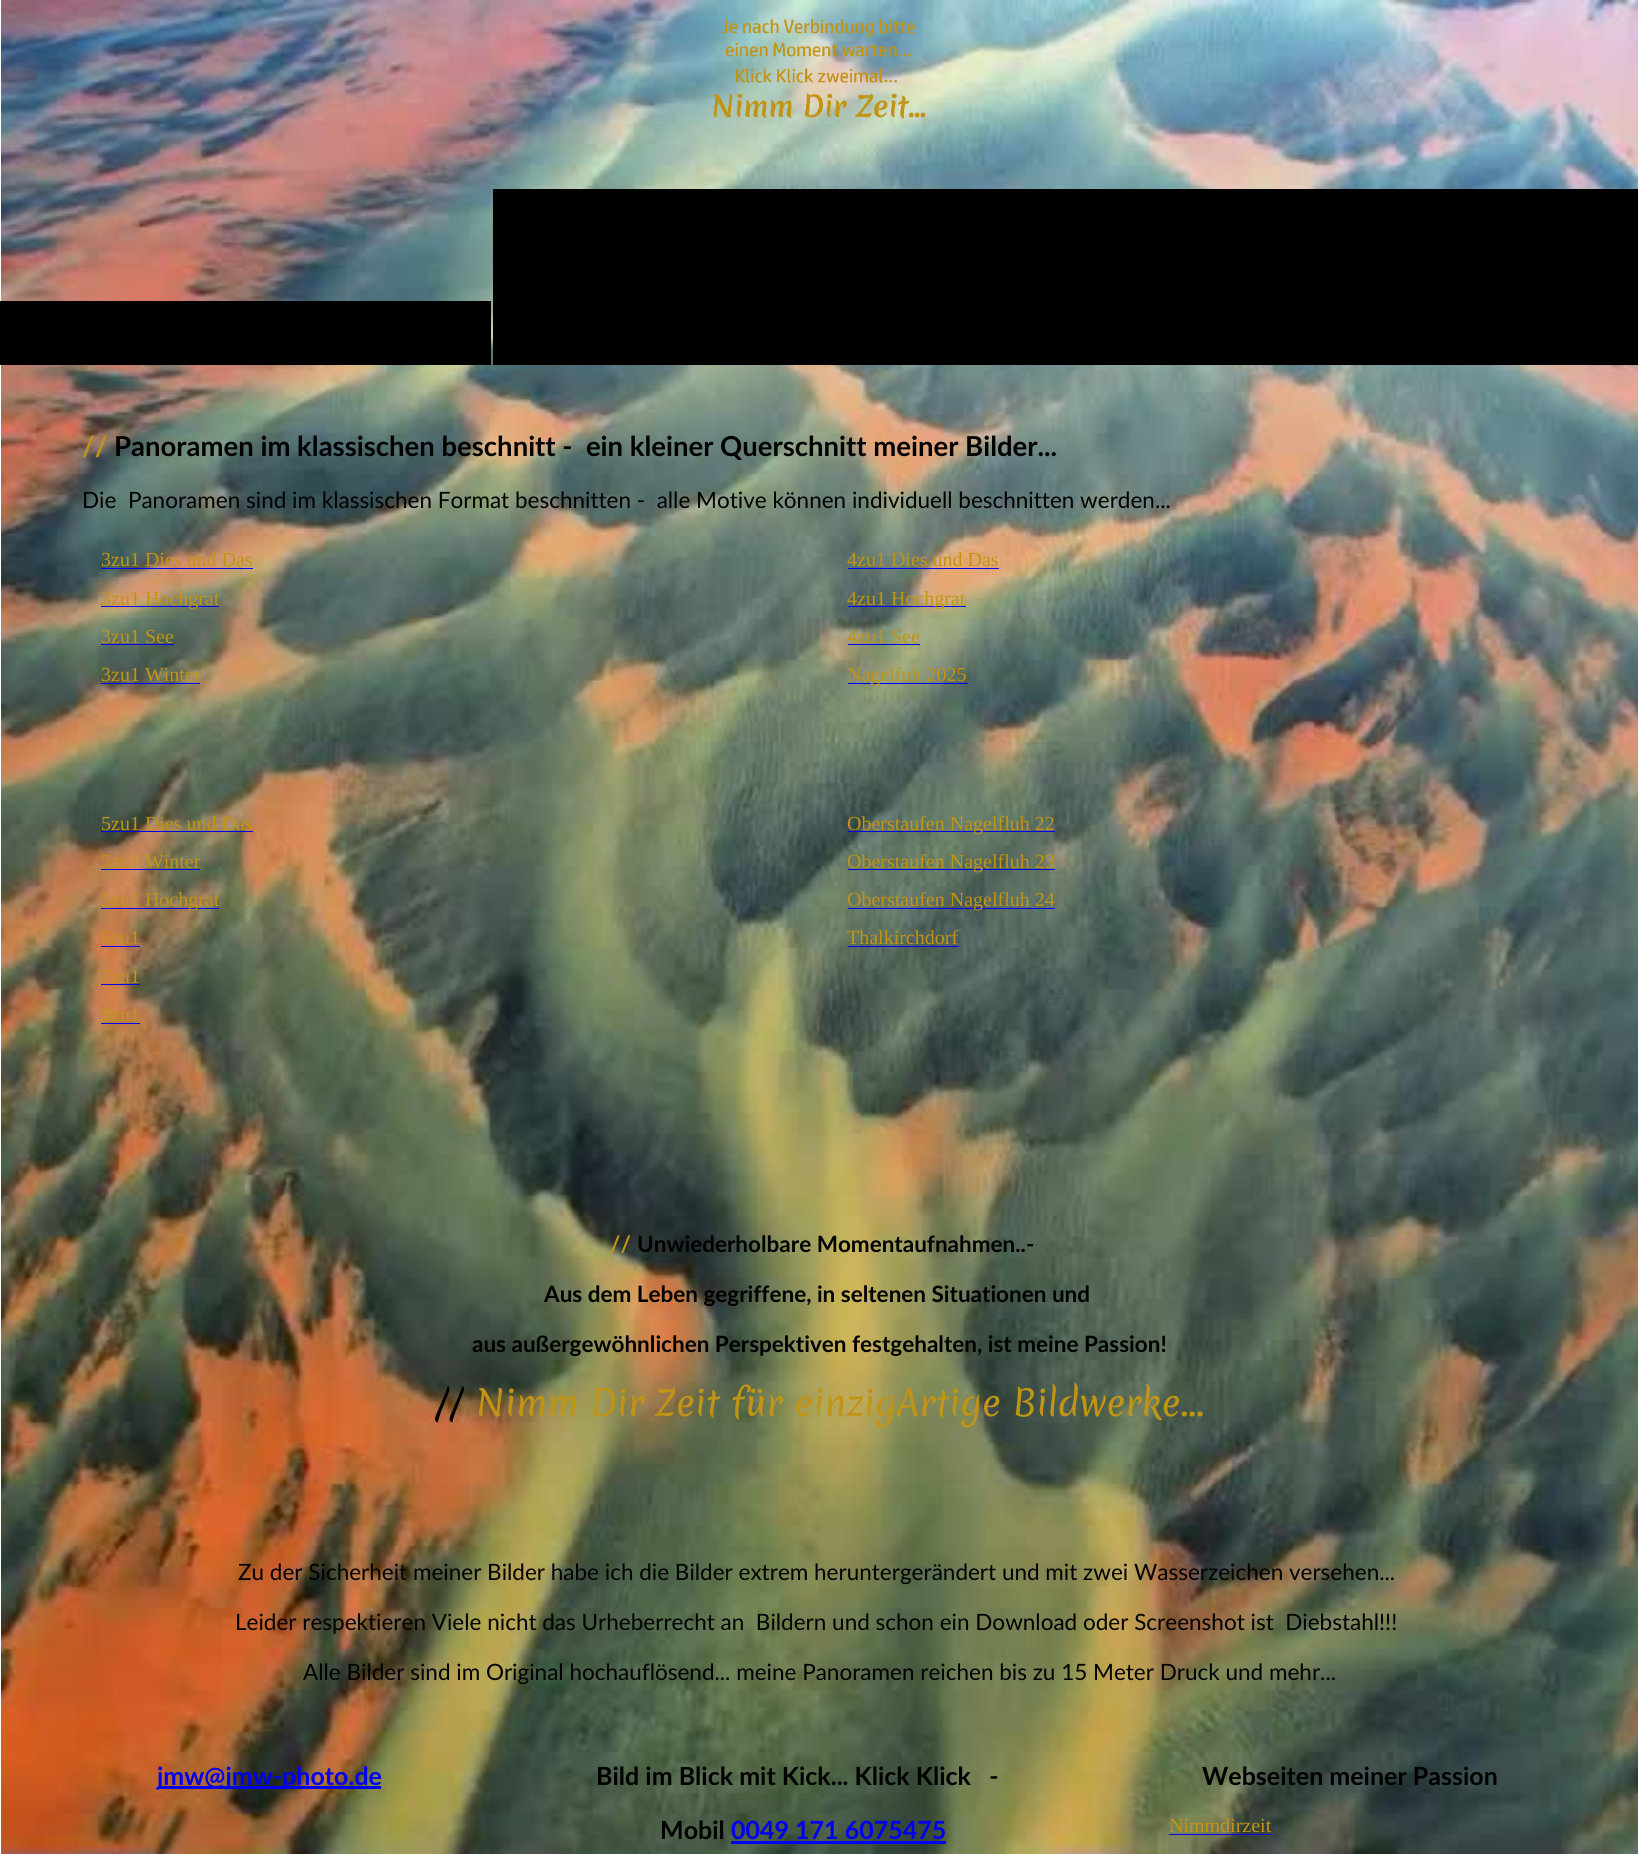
import math
import cairo

surface = cairo.ImageSurface(cairo.FORMAT_RGB24, 1638, 1854)
cr = cairo.Context(surface)
options = cairo.FontOptions()
options.set_hint_metrics(cairo.HINT_METRICS_OFF)
options.set_hint_style(cairo.HINT_STYLE_NONE)
cr.set_font_options(options)
cr.set_miter_limit(4)


def rgb(code):
    cr.set_source_rgb(*(v / 255 for v in bytes.fromhex(code[-6:])))


def image(path, x, y, w, h):
    cr.save()
    cr.set_source_surface(cairo.ImageSurface.create_from_png(path), x, y)
    cr.rectangle(x, y, w, h)
    cr.fill()
    cr.restore()


rgb("#ffffff")
cr.paint()
image("img/1.png", 1, 0, 1637, 1854)
image("img/2.png", 713, 18, 213, 101)
for x, y, w, h, color in [
    (0, 301, 491, 64, "#000000"),
    (493, 189, 1145, 176, "#000000"),
    (101, 568, 152, 1, "#0000ee"),
    (101, 606, 118, 1, "#0000ee"),
    (101, 644, 73, 1, "#0000ee"),
    (101, 683, 99, 1, "#0000ee"),
    (848, 568, 151, 1, "#0000ee"),
    (848, 606, 118, 1, "#0000ee"),
    (848, 644, 72, 1, "#0000ee"),
    (848, 683, 120, 1, "#0000ee"),
    (101, 831, 152, 1, "#0000ee"),
    (101, 869, 99, 1, "#0000ee"),
    (101, 908, 118, 1, "#0000ee"),
    (101, 946, 39, 1, "#0000ee"),
    (101, 984, 39, 1, "#0000ee"),
    (101, 1023, 39, 1, "#0000ee"),
    (848, 831, 207, 1, "#0000ee"),
    (848, 869, 207, 1, "#0000ee"),
    (848, 908, 207, 1, "#0000ee"),
    (848, 946, 111, 1, "#0000ee"),
    (158, 1786, 223, 3, "#0000ee"),
    (731, 1841, 215, 3, "#0000ee"),
    (1169, 1834, 102, 1, "#0000ee"),
]:
    rgb(color)
    cr.rectangle(x, y, w, h)
    cr.fill()
cr.select_font_face("Lato", cairo.FONT_SLANT_NORMAL, cairo.FONT_WEIGHT_BOLD)
cr.set_font_size(27.5)
rgb("#c29415")
cr.move_to(82, 456)
cr.show_text("//")
rgb("#000000")
cr.move_to(114, 456)
cr.show_text("Panoramen im klassischen beschnitt -  ein kleiner Querschnitt meiner Bilder...")
cr.select_font_face("Lato")
cr.set_font_size(22.5)
cr.move_to(82, 508)
cr.show_text("Die  Panoramen sind im klassischen Format beschnitten -  alle Motive können individuell beschnitten werden...")
cr.select_font_face("Liberation Serif")
cr.set_font_size(20)
rgb("#c29415")
for x, y, s in [
    (101, 566, "3zu1 Dies und Das"),
    (101, 605, "3zu1 Hochgrat"),
    (101, 643, "3zu1 See"),
    (101, 681, "3zu1 Winter"),
    (847, 566, "4zu1 Dies und Das"),
    (847, 605, "4zu1 Hochgrat"),
    (847, 643, "4zu1 See"),
    (847, 681, "Nagelfuh 2025"),
    (101, 830, "5zu1 Dies und Das"),
    (101, 868, "5zu1 Winter"),
    (101, 906, "5zu1 Hochgrat"),
    (101, 944, "6zu1"),
    (101, 983, "7zu1"),
    (101, 1021, "9zu1"),
    (847, 830, "Oberstaufen Nagelfluh 22"),
    (847, 868, "Oberstaufen Nagelfluh 23"),
    (847, 906, "Oberstaufen Nagelfluh 24"),
    (847, 944, "Thalkirchdorf"),
]:
    cr.move_to(x, y)
    cr.show_text(s)
cr.select_font_face("Lato", cairo.FONT_SLANT_NORMAL, cairo.FONT_WEIGHT_BOLD)
cr.set_font_size(22.5)
cr.move_to(610, 1252)
cr.show_text("//")
rgb("#000000")
for x, y, s in [
    (637, 1252, "Unwiederholbare Momentaufnahmen..-"),
    (544, 1302, "Aus dem Leben gegriffene, in seltenen Situationen und"),
    (472, 1352, "aus außergewöhnlichen Perspektiven festgehalten, ist meine Passion!"),
]:
    cr.move_to(x, y)
    cr.show_text(s)
cr.select_font_face("Merienda")
cr.set_font_size(35)
cr.move_to(435, 1416)
cr.show_text("//")
rgb("#c29415")
cr.move_to(476, 1416)
cr.show_text("Nimm Dir Zeit für einzigArtige Bildwerke...")
cr.select_font_face("Lato")
cr.set_font_size(22.5)
rgb("#000000")
for x, y, s in [
    (238, 1580, "Zu der Sicherheit meiner Bilder habe ich die Bilder extrem heruntergerändert und mit zwei Wasserzeichen versehen..."),
    (235, 1630, "Leider respektieren Viele nicht das Urheberrecht an  Bildern und schon ein Download oder Screenshot ist  Diebstahl!!!"),
    (303, 1680, "Alle Bilder sind im Original hochauflösend... meine Panoramen reichen bis zu 15 Meter Druck und mehr..."),
]:
    cr.move_to(x, y)
    cr.show_text(s)
cr.select_font_face("Lato", cairo.FONT_SLANT_NORMAL, cairo.FONT_WEIGHT_BOLD)
cr.set_font_size(25)
rgb("#0000ee")
cr.move_to(157, 1785)
cr.show_text("jmw@jmw-photo.de")
rgb("#000000")
cr.move_to(596, 1785)
cr.show_text("Bild im Blick mit Kick... Klick Klick   -")
cr.move_to(660, 1839)
cr.show_text("Mobil")
rgb("#0000ee")
cr.move_to(731, 1839)
cr.show_text("0049 171 6075475")
rgb("#000000")
cr.move_to(1202, 1785)
cr.show_text("Webseiten meiner Passion")
cr.select_font_face("Liberation Serif")
cr.set_font_size(20)
rgb("#c29415")
cr.move_to(1169, 1832)
cr.show_text("Nimmdirzeit")
surface.write_to_png("page.png")
